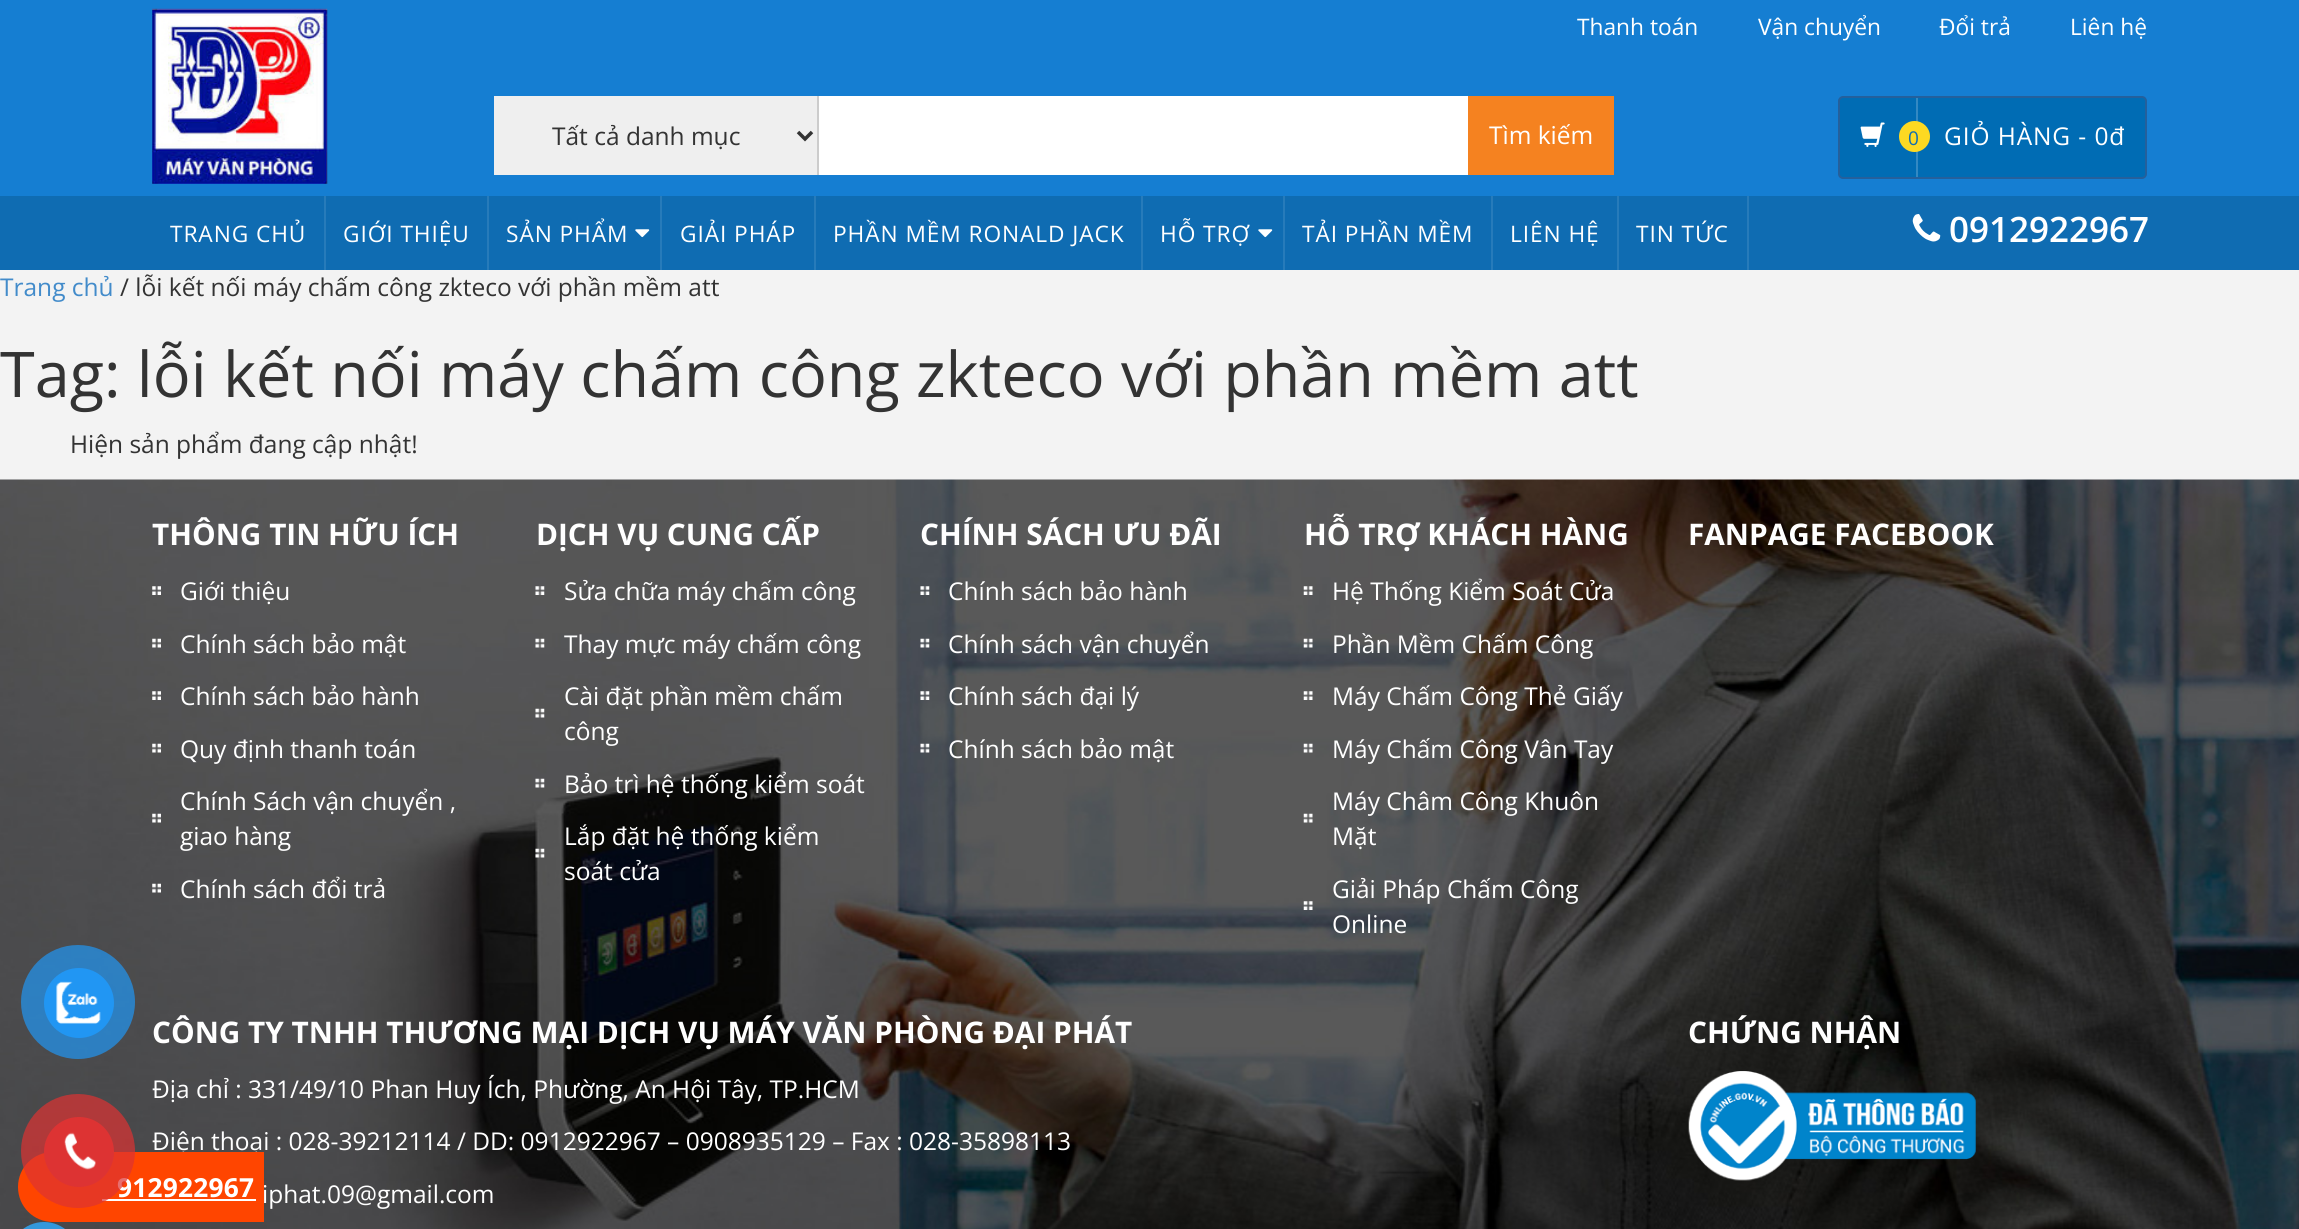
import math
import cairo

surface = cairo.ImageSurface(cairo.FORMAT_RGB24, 2299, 1229)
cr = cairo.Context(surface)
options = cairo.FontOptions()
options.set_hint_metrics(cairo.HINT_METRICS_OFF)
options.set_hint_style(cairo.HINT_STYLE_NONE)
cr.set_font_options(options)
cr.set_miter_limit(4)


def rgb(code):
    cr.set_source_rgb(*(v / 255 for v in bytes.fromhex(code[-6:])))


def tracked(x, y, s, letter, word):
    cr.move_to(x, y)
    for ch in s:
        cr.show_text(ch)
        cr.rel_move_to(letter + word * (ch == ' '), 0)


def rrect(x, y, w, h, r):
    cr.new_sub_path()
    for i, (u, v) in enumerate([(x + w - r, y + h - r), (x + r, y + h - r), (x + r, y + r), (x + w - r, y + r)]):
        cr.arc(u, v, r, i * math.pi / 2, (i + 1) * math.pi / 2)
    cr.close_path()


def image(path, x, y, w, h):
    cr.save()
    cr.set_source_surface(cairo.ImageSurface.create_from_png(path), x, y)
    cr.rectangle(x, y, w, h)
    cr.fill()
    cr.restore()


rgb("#f3f3f3")
cr.paint()
rgb("#157ed2")
cr.rectangle(0, 0, 2299, 196)
cr.fill()
image("img/1.png", 152, 8, 176, 176)
rgb("#efefef")
cr.rectangle(494, 96, 323, 79)
cr.fill()
cr.new_path()
cr.move_to(798, 132)
cr.line_to(805, 139)
cr.line_to(812, 132)
rgb("#333333")
cr.set_line_width(3.5)
cr.stroke()
for x, y, w, h, color in [
    (819, 96, 649, 79, "#ffffff"),
    (817, 96, 2, 79, "#cccccc"),
    (1468, 96, 146, 79, "#f58220"),
]:
    rgb(color)
    cr.rectangle(x, y, w, h)
    cr.fill()
rgb("#006cb4")
rrect(1839, 97, 307, 81, 4)
cr.fill_preserve()
rgb("#24609c")
cr.set_line_width(2)
cr.stroke()
rgb("#3389c3")
cr.rectangle(1916, 98, 2, 79)
cr.fill()
image("img/2.png", 1860, 122, 25, 25)
rgb("#fdd922")
cr.arc(1914.5, 136.5, 15.5, 0, 2 * math.pi)
cr.fill()
for x, y, w, h, color in [
    (0, 196, 2299, 74, "#0f6cb2"),
    (324, 196, 2, 74, "#277bba"),
    (487, 196, 2, 74, "#277bba"),
    (660, 196, 2, 74, "#277bba"),
]:
    rgb(color)
    cr.rectangle(x, y, w, h)
    cr.fill()
image("img/3.png", 635, 229, 15, 9)
for x, y, w, h, color in [
    (814, 196, 2, 74, "#277bba"),
    (1141, 196, 2, 74, "#277bba"),
    (1283, 196, 2, 74, "#277bba"),
]:
    rgb(color)
    cr.rectangle(x, y, w, h)
    cr.fill()
image("img/3.png", 1258, 229, 15, 9)
for x, y, w, h, color in [
    (1491, 196, 2, 74, "#277bba"),
    (1617, 196, 2, 74, "#277bba"),
    (1747, 196, 2, 74, "#277bba"),
]:
    rgb(color)
    cr.rectangle(x, y, w, h)
    cr.fill()
image("img/4.png", 1912, 214, 29, 28)
image("img/7.png", 0, 479, 2299, 750)
cr.set_source_rgba(0.129, 0.588, 0.953, 0.7)
cr.arc(78, 1002, 57, 0, 2 * math.pi)
cr.fill()
rgb("#2196f3")
cr.arc(79, 1003, 35, 0, 2 * math.pi)
cr.fill()
image("img/5.png", 56, 981, 45, 43)
image("img/8.png", 152, 586, 9, 9)
image("img/9.png", 152, 638, 9, 10)
image("img/10.png", 152, 691, 9, 9)
image("img/11.png", 152, 743, 9, 10)
image("img/12.png", 152, 813, 9, 10)
image("img/13.png", 152, 883, 9, 10)
image("img/14.png", 535, 586, 10, 9)
image("img/15.png", 535, 638, 10, 10)
image("img/16.png", 535, 708, 10, 10)
image("img/17.png", 535, 778, 10, 10)
image("img/18.png", 535, 848, 10, 10)
image("img/19.png", 920, 586, 10, 9)
image("img/20.png", 920, 638, 10, 10)
image("img/21.png", 920, 691, 10, 9)
image("img/22.png", 920, 743, 10, 10)
image("img/23.png", 1303, 586, 10, 9)
image("img/24.png", 1303, 638, 10, 10)
image("img/25.png", 1303, 691, 10, 9)
image("img/26.png", 1303, 743, 10, 10)
image("img/27.png", 1303, 813, 10, 10)
image("img/28.png", 1303, 901, 10, 9)
image("img/29.png", 1688, 1071, 288, 110)
rgb("#3498db")
rrect(9, 1222, 70, 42, 35)
cr.fill()
cr.select_font_face("Open Sans")
cr.set_font_size(22.75)
rgb("#ffffff")
for x, y, s in [
    (1577, 35, "Thanh toán"),
    (1758, 35, "Vận chuyển"),
    (1939, 35, "Đổi trả"),
    (2070, 35, "Liên hệ"),
]:
    cr.move_to(x, y)
    cr.show_text(s)
cr.set_font_size(24.5)
rgb("#333333")
cr.move_to(552, 145)
cr.show_text("Tất cả danh mục")
rgb("#ffffff")
cr.move_to(1489, 144)
cr.show_text("Tìm kiếm")
tracked(1944, 145, "GIỎ HÀNG - 0đ", 0.9, 0)
cr.set_font_size(19)
rgb("#0f6cb2")
cr.move_to(1908, 145)
cr.show_text("0")
cr.set_font_size(22.75)
rgb("#ffffff")
for x, y, s in [
    (170, 242, "TRANG CHỦ"),
    (343, 242, "GIỚI THIỆU"),
    (506, 242, "SẢN PHẨM"),
    (680, 242, "GIẢI PHÁP"),
    (833, 242, "PHẦN MỀM RONALD JACK"),
    (1160, 242, "HỖ TRỢ"),
    (1302, 242, "TẢI PHẦN MỀM"),
    (1510, 242, "LIÊN HỆ"),
    (1636, 242, "TIN TỨC"),
]:
    tracked(x, y, s, 0.9, 0)
cr.select_font_face("Open Sans SemiBold")
cr.set_font_size(35)
cr.move_to(1949, 242)
cr.show_text("0912922967")
cr.select_font_face("Open Sans")
cr.set_font_size(24.5)
rgb("#428bca")
cr.move_to(0, 296)
cr.show_text("Trang chủ")
rgb("#333333")
cr.move_to(120, 296)
cr.show_text("/ lỗi kết nối máy chấm công zkteco với phần mềm att")
cr.set_font_size(63)
cr.move_to(0, 397)
cr.show_text("Tag: lỗi kết nối máy chấm công zkteco với phần mềm att")
cr.set_font_size(24.5)
cr.move_to(70, 453)
cr.show_text("Hiện sản phẩm đang cập nhật!")
cr.select_font_face("Open Sans", cairo.FONT_SLANT_NORMAL, cairo.FONT_WEIGHT_BOLD)
cr.set_font_size(29.75)
rgb("#ffffff")
cr.move_to(152, 545)
cr.show_text("THÔNG TIN HỮU ÍCH")
cr.select_font_face("Open Sans")
cr.set_font_size(24.5)
for x, y, s in [
    (180, 600, "Giới thiệu"),
    (180, 653, "Chính sách bảo mật"),
    (180, 705, "Chính sách bảo hành"),
    (180, 758, "Quy định thanh toán"),
    (180, 810, "Chính Sách vận chuyển ,"),
    (180, 845, "giao hàng"),
    (180, 898, "Chính sách đổi trả"),
]:
    cr.move_to(x, y)
    cr.show_text(s)
cr.select_font_face("Open Sans", cairo.FONT_SLANT_NORMAL, cairo.FONT_WEIGHT_BOLD)
cr.set_font_size(29.75)
cr.move_to(536, 545)
cr.show_text("DỊCH VỤ CUNG CẤP")
cr.select_font_face("Open Sans")
cr.set_font_size(24.5)
for x, y, s in [
    (564, 600, "Sửa chữa máy chấm công"),
    (564, 653, "Thay mực máy chấm công"),
    (564, 705, "Cài đặt phần mềm chấm"),
    (564, 740, "công"),
    (564, 793, "Bảo trì hệ thống kiểm soát"),
    (564, 845, "Lắp đặt hệ thống kiểm"),
    (564, 880, "soát cửa"),
]:
    cr.move_to(x, y)
    cr.show_text(s)
cr.select_font_face("Open Sans", cairo.FONT_SLANT_NORMAL, cairo.FONT_WEIGHT_BOLD)
cr.set_font_size(29.75)
cr.move_to(920, 545)
cr.show_text("CHÍNH SÁCH ƯU ĐÃI")
cr.select_font_face("Open Sans")
cr.set_font_size(24.5)
for x, y, s in [
    (948, 600, "Chính sách bảo hành"),
    (948, 653, "Chính sách vận chuyển"),
    (948, 705, "Chính sách đại lý"),
    (948, 758, "Chính sách bảo mật"),
]:
    cr.move_to(x, y)
    cr.show_text(s)
cr.select_font_face("Open Sans", cairo.FONT_SLANT_NORMAL, cairo.FONT_WEIGHT_BOLD)
cr.set_font_size(29.75)
cr.move_to(1304, 545)
cr.show_text("HỖ TRỢ KHÁCH HÀNG")
cr.select_font_face("Open Sans")
cr.set_font_size(24.5)
for x, y, s in [
    (1332, 600, "Hệ Thống Kiểm Soát Cửa"),
    (1332, 653, "Phần Mềm Chấm Công"),
    (1332, 705, "Máy Chấm Công Thẻ Giấy"),
    (1332, 758, "Máy Chấm Công Vân Tay"),
    (1332, 810, "Máy Châm Công Khuôn"),
    (1332, 845, "Mặt"),
    (1332, 898, "Giải Pháp Chấm Công"),
    (1332, 933, "Online"),
]:
    cr.move_to(x, y)
    cr.show_text(s)
cr.select_font_face("Open Sans", cairo.FONT_SLANT_NORMAL, cairo.FONT_WEIGHT_BOLD)
cr.set_font_size(29.75)
cr.move_to(1688, 545)
cr.show_text("FANPAGE FACEBOOK")
cr.move_to(152, 1043)
cr.show_text("CÔNG TY TNHH THƯƠNG MẠI DỊCH VỤ MÁY VĂN PHÒNG ĐẠI PHÁT")
cr.select_font_face("Open Sans")
cr.set_font_size(24.5)
for x, y, s in [
    (152, 1098, "Địa chỉ : 331/49/10 Phan Huy Ích, Phường, An Hội Tây, TP.HCM"),
    (152, 1150, "Điện thoại : 028-39212114 / DD: 0912922967 – 0908935129 – Fax : 028-35898113"),
    (262, 1203, "iphat.09@gmail.com"),
]:
    cr.move_to(x, y)
    cr.show_text(s)
cr.select_font_face("Open Sans", cairo.FONT_SLANT_NORMAL, cairo.FONT_WEIGHT_BOLD)
cr.set_font_size(29.75)
cr.move_to(1688, 1043)
cr.show_text("CHỨNG NHẬN")
rgb("#ff4500")
cr.new_path()
cr.move_to(53, 1152)
cr.line_to(264, 1152)
cr.line_to(264, 1222)
cr.line_to(53, 1222)
cr.curve_to(33.5, 1222, 18, 1206.5, 18, 1187)
cr.curve_to(18, 1167.5, 33.5, 1152, 53, 1152)
cr.close_path()
cr.fill()
cr.set_font_size(26.25)
rgb("#ffffff")
tracked(117, 1197, "912922967", 0.25, 0)
cr.rectangle(102, 1199, 154, 2)
cr.fill()
cr.set_source_rgba(0.867, 0.2, 0.2, 0.7)
cr.arc(78, 1151, 57, 0, 2 * math.pi)
cr.fill()
rgb("#dd3333")
cr.arc(79, 1152, 35, 0, 2 * math.pi)
cr.fill()
image("img/6.png", 64, 1132, 32, 38)
surface.write_to_png("page.png")
